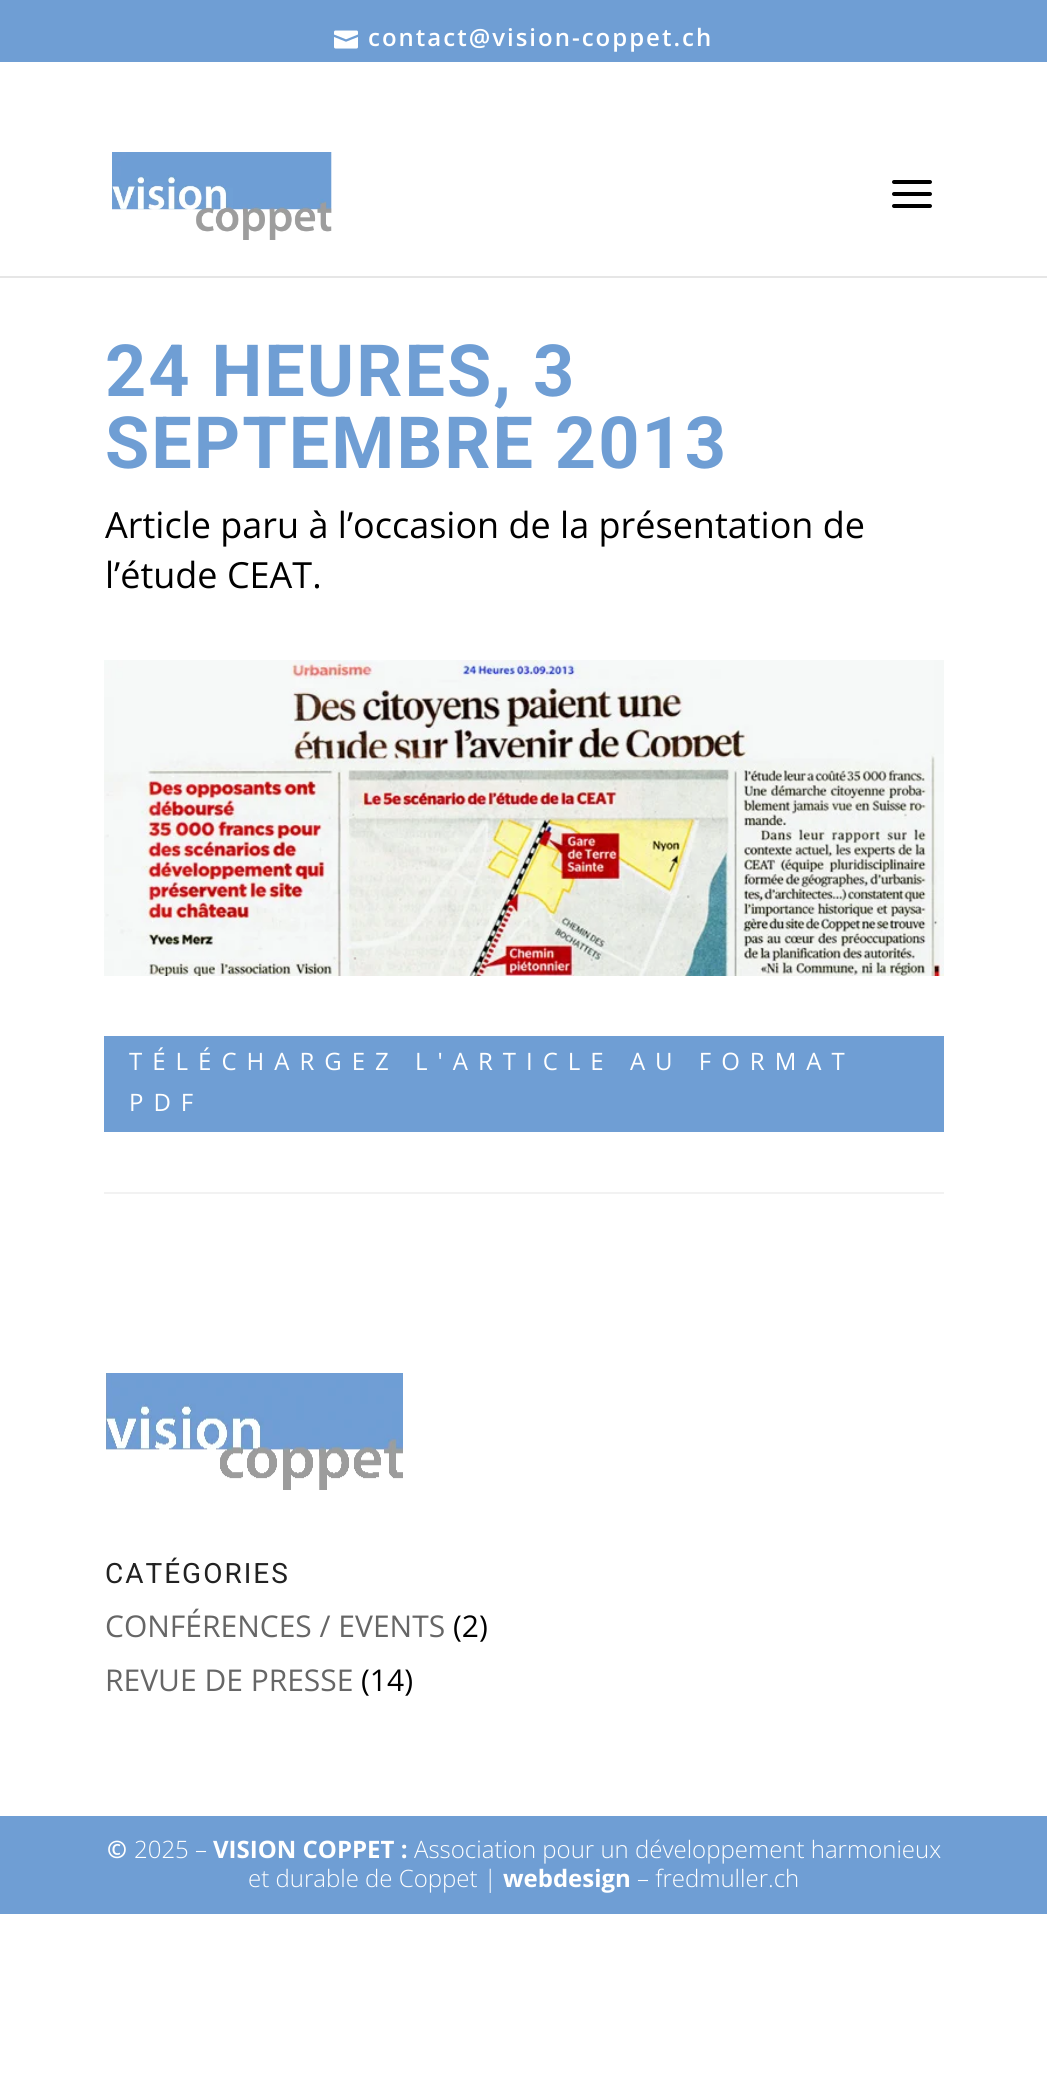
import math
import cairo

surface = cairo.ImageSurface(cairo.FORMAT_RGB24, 1047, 2095)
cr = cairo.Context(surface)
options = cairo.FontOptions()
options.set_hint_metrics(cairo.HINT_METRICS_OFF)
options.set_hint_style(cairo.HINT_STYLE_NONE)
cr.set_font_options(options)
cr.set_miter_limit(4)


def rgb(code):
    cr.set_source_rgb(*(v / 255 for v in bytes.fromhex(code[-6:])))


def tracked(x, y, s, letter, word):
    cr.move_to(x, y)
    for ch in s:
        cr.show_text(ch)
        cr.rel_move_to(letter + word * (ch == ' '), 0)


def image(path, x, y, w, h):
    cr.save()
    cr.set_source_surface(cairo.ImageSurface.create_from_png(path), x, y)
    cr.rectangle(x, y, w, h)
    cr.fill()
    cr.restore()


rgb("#ffffff")
cr.paint()
rgb("#6f9ed4")
cr.rectangle(0, 0, 1047, 62)
cr.fill()
image("img/1.png", 334, 30, 24, 19)
rgb("#e6e6e6")
cr.rectangle(0, 276, 1047, 2)
cr.fill()
image("img/2.png", 112, 152, 220, 88)
image("img/3.png", 892, 180, 40, 28)
image("img/4.png", 104, 660, 840, 316)
rgb("#6f9ed4")
cr.rectangle(104, 1036, 840, 96)
cr.fill()
rgb("#f2f2f2")
cr.rectangle(104, 1192, 840, 2)
cr.fill()
image("img/5.png", 106, 1373, 297, 117)
rgb("#6f9ed4")
cr.rectangle(0, 1816, 1047, 98)
cr.fill()
cr.select_font_face("Open Sans SemiBold")
cr.set_font_size(24)
rgb("#ffffff")
tracked(368, 46, "contact@vision-coppet.ch", 2, 0)
cr.select_font_face("Roboto", cairo.FONT_SLANT_NORMAL, cairo.FONT_WEIGHT_BOLD)
cr.set_font_size(72)
rgb("#6f9ed4")
tracked(105, 396, "24 HEURES, 3", 2, 0)
tracked(105, 468, "SEPTEMBRE 2013", 2, 0)
cr.select_font_face("Open Sans")
cr.set_font_size(36)
rgb("#000000")
cr.move_to(105, 538)
cr.show_text("Article paru à l’occasion de la présentation de")
cr.move_to(105, 588)
cr.show_text("l’étude CEAT.")
cr.set_font_size(24)
rgb("#ffffff")
tracked(129, 1070, "TÉLÉCHARGEZ L'ARTICLE AU FORMAT", 10, 0)
tracked(129, 1111, "PDF", 10, 0)
cr.select_font_face("Roboto")
cr.set_font_size(28)
rgb("#222222")
tracked(105, 1583, "CATÉGORIES", 2, 0)
cr.select_font_face("Open Sans")
cr.set_font_size(30)
rgb("#666666")
cr.move_to(105, 1637)
cr.show_text("CONFÉRENCES / EVENTS")
rgb("#000000")
cr.move_to(453, 1637)
cr.show_text("(2)")
rgb("#666666")
cr.move_to(105, 1691)
cr.show_text("REVUE DE PRESSE")
rgb("#000000")
cr.move_to(361, 1691)
cr.show_text("(14)")
cr.select_font_face("Open Sans", cairo.FONT_SLANT_NORMAL, cairo.FONT_WEIGHT_BOLD)
cr.set_font_size(24)
rgb("#ffffff")
cr.move_to(107, 1858)
cr.show_text("©")
cr.select_font_face("Open Sans Light")
cr.move_to(134, 1858)
cr.show_text("2025 –")
cr.select_font_face("Open Sans", cairo.FONT_SLANT_NORMAL, cairo.FONT_WEIGHT_BOLD)
cr.move_to(213, 1858)
cr.show_text("VISION COPPET :")
cr.select_font_face("Open Sans Light")
cr.move_to(414, 1858)
cr.show_text("Association pour un développement harmonieux")
cr.move_to(248, 1887)
cr.show_text("et durable de Coppet |")
cr.select_font_face("Open Sans", cairo.FONT_SLANT_NORMAL, cairo.FONT_WEIGHT_BOLD)
cr.move_to(503, 1887)
cr.show_text("webdesign")
cr.select_font_face("Open Sans Light")
cr.move_to(637, 1887)
cr.show_text("– fredmuller.ch")
surface.write_to_png("page.png")
